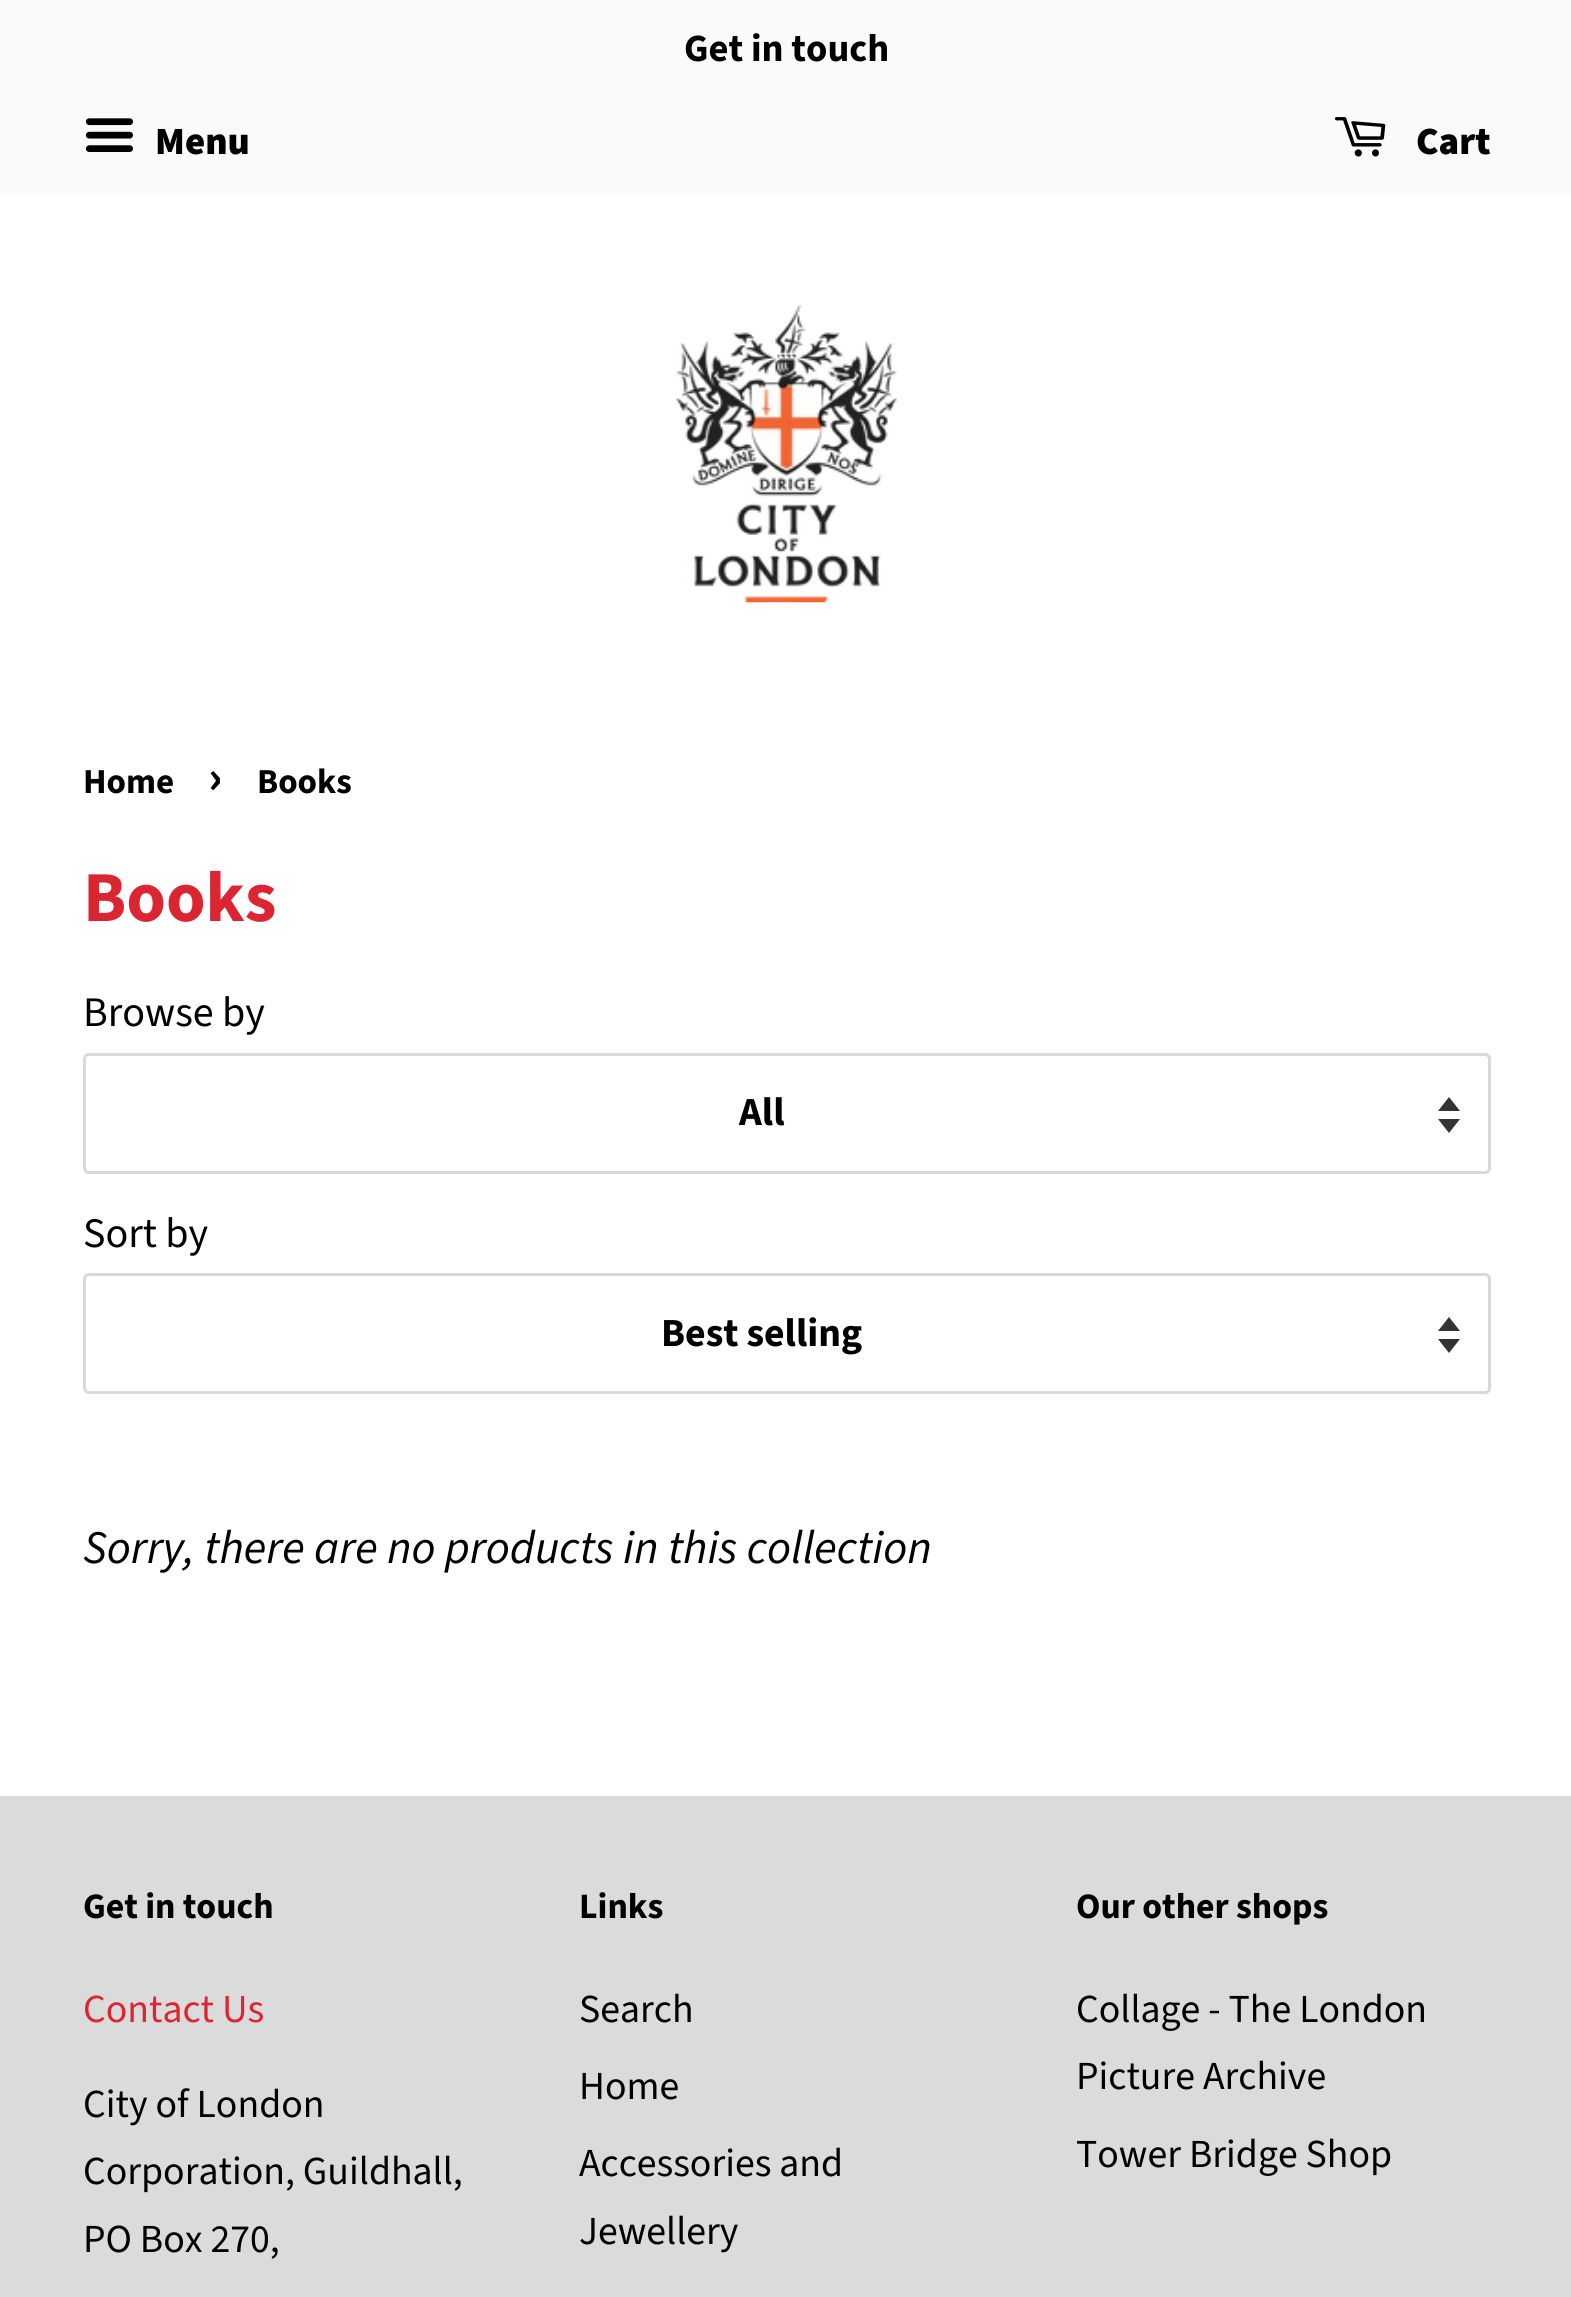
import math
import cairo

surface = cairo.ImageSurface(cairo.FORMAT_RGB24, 1571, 2297)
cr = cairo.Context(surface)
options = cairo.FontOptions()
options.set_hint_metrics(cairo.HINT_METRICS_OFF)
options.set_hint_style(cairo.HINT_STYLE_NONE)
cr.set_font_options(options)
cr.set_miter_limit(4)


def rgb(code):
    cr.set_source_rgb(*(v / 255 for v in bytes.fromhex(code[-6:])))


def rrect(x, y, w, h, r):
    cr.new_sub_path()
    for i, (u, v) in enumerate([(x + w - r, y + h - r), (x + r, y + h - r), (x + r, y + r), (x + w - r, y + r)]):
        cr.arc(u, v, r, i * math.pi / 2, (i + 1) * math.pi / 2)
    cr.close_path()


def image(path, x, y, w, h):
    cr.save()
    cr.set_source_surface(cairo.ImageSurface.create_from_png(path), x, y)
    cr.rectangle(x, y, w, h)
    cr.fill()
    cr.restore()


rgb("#ffffff")
cr.paint()
rgb("#fafafa")
cr.rectangle(0, 0, 1571, 195)
cr.fill()
image("img/1.png", 85, 118, 48, 34)
image("img/2.png", 1334, 117, 52, 40)
image("img/3.png", 676, 305, 221, 298)
rgb("#333333")
cr.new_path()
cr.move_to(1438, 1119)
cr.line_to(1449, 1133)
cr.line_to(1460, 1119)
cr.close_path()
cr.move_to(1449, 1097)
cr.line_to(1438, 1111)
cr.line_to(1460, 1111)
cr.close_path()
cr.fill()
rrect(84.5, 1054.5, 1405, 118, 4.5)
rgb("#d9d9d9")
cr.set_line_width(3)
cr.stroke()
rgb("#333333")
cr.new_path()
cr.move_to(1438, 1339)
cr.line_to(1449, 1353)
cr.line_to(1460, 1339)
cr.close_path()
cr.move_to(1449, 1317)
cr.line_to(1438, 1331)
cr.line_to(1460, 1331)
cr.close_path()
cr.fill()
rrect(84.5, 1274.5, 1405, 118, 4.5)
rgb("#d9d9d9")
cr.stroke()
rgb("#dbdbdc")
cr.rectangle(0, 1796, 1571, 501)
cr.fill()
cr.select_font_face("Source Sans Pro", cairo.FONT_SLANT_NORMAL, cairo.FONT_WEIGHT_BOLD)
cr.set_font_size(38.5)
rgb("#000000")
cr.move_to(684, 61)
cr.show_text("Get in touch")
cr.select_font_face("Source Sans Pro Black")
cr.move_to(155, 154)
cr.show_text("Menu")
cr.move_to(1416, 154)
cr.show_text("Cart")
cr.select_font_face("Source Sans Pro", cairo.FONT_SLANT_NORMAL, cairo.FONT_WEIGHT_BOLD)
cr.set_font_size(35)
cr.move_to(83, 793)
cr.show_text("Home")
cr.set_font_size(49)
cr.move_to(208, 793)
cr.show_text("›")
cr.set_font_size(35)
cr.move_to(257, 793)
cr.show_text("Books")
cr.set_font_size(71.5)
rgb("#db2532")
cr.move_to(83, 921)
cr.show_text("Books")
cr.select_font_face("Source Sans Pro")
cr.set_font_size(42)
rgb("#000000")
cr.move_to(83, 1026)
cr.show_text("Browse by")
cr.select_font_face("Source Sans Pro", cairo.FONT_SLANT_NORMAL, cairo.FONT_WEIGHT_BOLD)
cr.set_font_size(39.75)
cr.move_to(739, 1125)
cr.show_text("All")
cr.select_font_face("Source Sans Pro")
cr.set_font_size(42)
cr.move_to(83, 1247)
cr.show_text("Sort by")
cr.select_font_face("Source Sans Pro", cairo.FONT_SLANT_NORMAL, cairo.FONT_WEIGHT_BOLD)
cr.set_font_size(39.75)
cr.move_to(661, 1346)
cr.show_text("Best selling")
cr.select_font_face("Source Sans Pro", cairo.FONT_SLANT_ITALIC)
cr.set_font_size(46.75)
cr.move_to(83, 1563)
cr.show_text("Sorry, there are no products in this collection")
cr.select_font_face("Source Sans Pro", cairo.FONT_SLANT_NORMAL, cairo.FONT_WEIGHT_BOLD)
cr.set_font_size(35.75)
cr.move_to(83, 1918)
cr.show_text("Get in touch")
cr.select_font_face("Source Sans Pro")
cr.set_font_size(39.75)
rgb("#db2532")
cr.move_to(83, 2022)
cr.show_text("Contact Us")
rgb("#000000")
for x, y, s in [
    (83, 2117, "City of London"),
    (83, 2184, "Corporation, Guildhall,"),
    (83, 2252, "PO Box 270,"),
]:
    cr.move_to(x, y)
    cr.show_text(s)
cr.select_font_face("Source Sans Pro", cairo.FONT_SLANT_NORMAL, cairo.FONT_WEIGHT_BOLD)
cr.set_font_size(35.75)
cr.move_to(579, 1918)
cr.show_text("Links")
cr.select_font_face("Source Sans Pro")
cr.set_font_size(39.75)
for x, y, s in [
    (579, 2022, "Search"),
    (579, 2099, "Home"),
    (579, 2176, "Accessories and"),
    (579, 2244, "Jewellery"),
]:
    cr.move_to(x, y)
    cr.show_text(s)
cr.select_font_face("Source Sans Pro", cairo.FONT_SLANT_NORMAL, cairo.FONT_WEIGHT_BOLD)
cr.set_font_size(35.75)
cr.move_to(1076, 1918)
cr.show_text("Our other shops")
cr.select_font_face("Source Sans Pro")
cr.set_font_size(39.75)
for x, y, s in [
    (1076, 2022, "Collage - The London"),
    (1076, 2089, "Picture Archive"),
    (1076, 2167, "Tower Bridge Shop"),
]:
    cr.move_to(x, y)
    cr.show_text(s)
surface.write_to_png("page.png")
